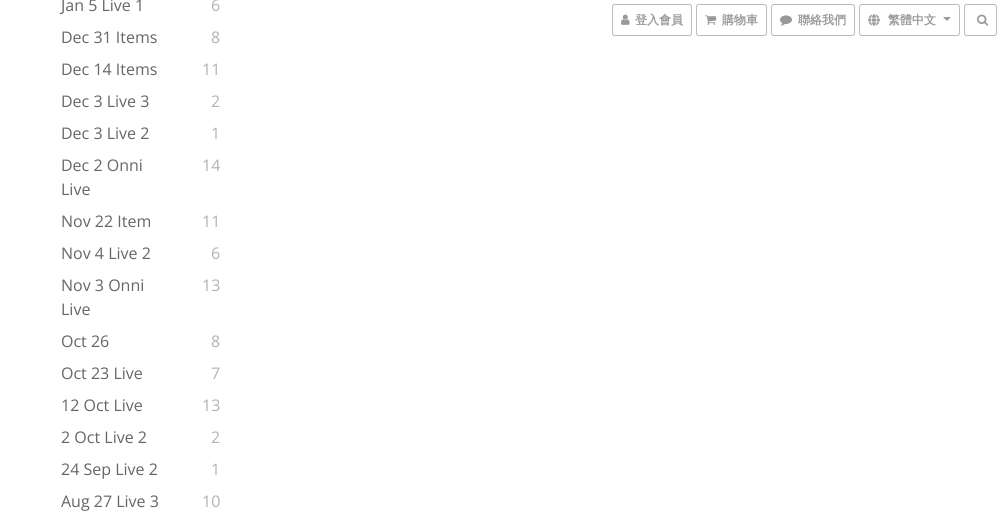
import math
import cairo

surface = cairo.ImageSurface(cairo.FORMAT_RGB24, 1001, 515)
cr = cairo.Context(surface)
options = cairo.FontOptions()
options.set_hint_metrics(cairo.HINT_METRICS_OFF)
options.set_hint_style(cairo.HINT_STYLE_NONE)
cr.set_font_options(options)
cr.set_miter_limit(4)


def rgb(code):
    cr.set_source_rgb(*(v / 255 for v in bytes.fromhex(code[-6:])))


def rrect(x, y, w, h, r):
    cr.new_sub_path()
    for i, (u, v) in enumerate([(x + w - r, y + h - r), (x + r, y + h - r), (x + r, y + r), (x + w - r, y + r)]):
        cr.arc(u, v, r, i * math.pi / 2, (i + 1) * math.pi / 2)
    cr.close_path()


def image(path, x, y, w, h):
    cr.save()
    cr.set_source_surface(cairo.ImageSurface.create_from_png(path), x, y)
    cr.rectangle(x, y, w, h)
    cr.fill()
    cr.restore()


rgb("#ffffff")
cr.paint()
rrect(612.5, 4.5, 79, 31, 2.5)
rgb("#bbbbbb")
cr.set_line_width(1)
cr.stroke()
image("img/1.png", 621, 14, 9, 11)
rrect(696.5, 4.5, 70, 31, 2.5)
cr.stroke()
image("img/2.png", 705, 15, 12, 10)
rrect(771.5, 4.5, 83, 31, 2.5)
cr.stroke()
image("img/3.png", 780, 15, 12, 11)
rrect(859.5, 4.5, 100, 31, 2.5)
cr.stroke()
image("img/4.png", 868, 14, 12, 12)
rgb("#999999")
cr.new_path()
cr.move_to(943, 17)
cr.line_to(951, 17)
cr.line_to(947, 21)
cr.close_path()
cr.fill()
rrect(964.5, 4.5, 32, 31, 2.5)
rgb("#bbbbbb")
cr.stroke()
image("img/5.png", 977, 14, 11, 12)
cr.select_font_face("Open Sans")
cr.set_font_size(16)
rgb("#666666")
cr.move_to(61, 11)
cr.show_text("Jan 5 Live 1")
rgb("#b3b3b3")
cr.move_to(211, 11)
cr.show_text("6")
rgb("#666666")
cr.move_to(61, 43)
cr.show_text("Dec 31 Items")
rgb("#b3b3b3")
cr.move_to(211, 43)
cr.show_text("8")
rgb("#666666")
cr.move_to(61, 75)
cr.show_text("Dec 14 Items")
rgb("#b3b3b3")
cr.move_to(202, 75)
cr.show_text("11")
rgb("#666666")
cr.move_to(61, 107)
cr.show_text("Dec 3 Live 3")
rgb("#b3b3b3")
cr.move_to(211, 107)
cr.show_text("2")
rgb("#666666")
cr.move_to(61, 139)
cr.show_text("Dec 3 Live 2")
rgb("#b3b3b3")
cr.move_to(211, 139)
cr.show_text("1")
rgb("#666666")
cr.move_to(61, 171)
cr.show_text("Dec 2 Onni")
cr.move_to(61, 195)
cr.show_text("Live")
rgb("#b3b3b3")
cr.move_to(202, 171)
cr.show_text("14")
rgb("#666666")
cr.move_to(61, 227)
cr.show_text("Nov 22 Item")
rgb("#b3b3b3")
cr.move_to(202, 227)
cr.show_text("11")
rgb("#666666")
cr.move_to(61, 259)
cr.show_text("Nov 4 Live 2")
rgb("#b3b3b3")
cr.move_to(211, 259)
cr.show_text("6")
rgb("#666666")
cr.move_to(61, 291)
cr.show_text("Nov 3 Onni")
cr.move_to(61, 315)
cr.show_text("Live")
rgb("#b3b3b3")
cr.move_to(202, 291)
cr.show_text("13")
rgb("#666666")
cr.move_to(61, 347)
cr.show_text("Oct 26")
rgb("#b3b3b3")
cr.move_to(211, 347)
cr.show_text("8")
rgb("#666666")
cr.move_to(61, 379)
cr.show_text("Oct 23 Live")
rgb("#b3b3b3")
cr.move_to(211, 379)
cr.show_text("7")
rgb("#666666")
cr.move_to(61, 411)
cr.show_text("12 Oct Live")
rgb("#b3b3b3")
cr.move_to(202, 411)
cr.show_text("13")
rgb("#666666")
cr.move_to(61, 443)
cr.show_text("2 Oct Live 2")
rgb("#b3b3b3")
cr.move_to(211, 443)
cr.show_text("2")
rgb("#666666")
cr.move_to(61, 475)
cr.show_text("24 Sep Live 2")
rgb("#b3b3b3")
cr.move_to(211, 475)
cr.show_text("1")
rgb("#666666")
cr.move_to(61, 507)
cr.show_text("Aug 27 Live 3")
rgb("#b3b3b3")
cr.move_to(202, 507)
cr.show_text("10")
cr.select_font_face("WenQuanYi Zen Hei", cairo.FONT_SLANT_NORMAL, cairo.FONT_WEIGHT_BOLD)
cr.set_font_size(12)
rgb("#999999")
for x, y, s in [
    (635, 24, "登入會員"),
    (722, 24, "購物車"),
    (798, 24, "聯絡我們"),
    (888, 24, "繁體中文"),
]:
    cr.move_to(x, y)
    cr.show_text(s)
surface.write_to_png("page.png")
